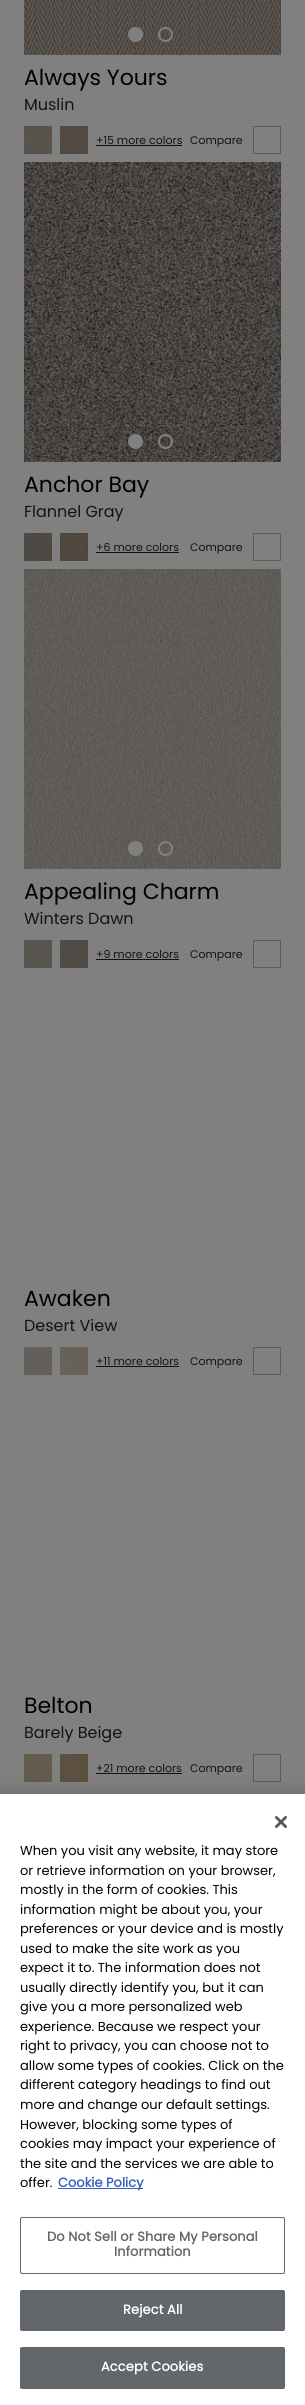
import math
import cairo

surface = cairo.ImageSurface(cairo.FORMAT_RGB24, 305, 2405)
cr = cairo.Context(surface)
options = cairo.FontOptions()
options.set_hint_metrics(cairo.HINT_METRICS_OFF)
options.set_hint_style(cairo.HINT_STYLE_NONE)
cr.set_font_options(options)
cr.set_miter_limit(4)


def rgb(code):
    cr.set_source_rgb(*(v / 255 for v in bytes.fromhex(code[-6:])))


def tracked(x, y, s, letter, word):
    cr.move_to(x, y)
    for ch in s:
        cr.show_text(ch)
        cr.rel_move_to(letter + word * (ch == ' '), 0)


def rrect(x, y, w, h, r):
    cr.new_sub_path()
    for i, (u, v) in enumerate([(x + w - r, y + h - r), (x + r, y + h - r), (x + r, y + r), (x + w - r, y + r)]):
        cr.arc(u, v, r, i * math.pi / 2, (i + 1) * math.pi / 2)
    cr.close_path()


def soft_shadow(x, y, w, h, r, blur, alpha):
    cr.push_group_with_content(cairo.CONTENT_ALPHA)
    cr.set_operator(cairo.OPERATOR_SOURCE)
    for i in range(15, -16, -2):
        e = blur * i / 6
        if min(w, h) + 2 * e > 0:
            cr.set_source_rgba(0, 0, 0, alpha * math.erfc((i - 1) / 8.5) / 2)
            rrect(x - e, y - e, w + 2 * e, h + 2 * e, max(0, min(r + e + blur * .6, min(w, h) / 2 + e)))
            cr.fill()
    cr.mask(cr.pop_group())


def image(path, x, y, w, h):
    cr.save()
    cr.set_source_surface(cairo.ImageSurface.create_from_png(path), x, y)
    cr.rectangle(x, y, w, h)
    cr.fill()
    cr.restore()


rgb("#808080")
cr.paint()
image("img/1.png", 24, 0, 257, 55)
rgb("#808080")
cr.arc(135.5, 34.5, 6.5, 0, 2 * math.pi)
cr.fill_preserve()
cr.stroke()
cr.arc(165.5, 34.5, 6.5, 0, 2 * math.pi)
cr.stroke()
image("img/2.png", 24, 126, 28, 28)
image("img/3.png", 60, 126, 28, 28)
rgb("#111111")
cr.rectangle(96, 145, 86, 1)
cr.fill()
cr.rectangle(253.5, 126.5, 27, 27)
rgb("#5c5c5c")
cr.set_line_width(1)
cr.stroke()
image("img/4.png", 24, 162, 257, 300)
rgb("#808080")
cr.arc(135.5, 441.5, 6.5, 0, 2 * math.pi)
cr.fill_preserve()
cr.set_line_width(2)
cr.stroke()
cr.arc(165.5, 441.5, 6.5, 0, 2 * math.pi)
cr.stroke()
image("img/5.png", 24, 533, 28, 28)
image("img/6.png", 60, 533, 28, 28)
rgb("#111111")
cr.rectangle(96, 552, 83, 1)
cr.fill()
cr.rectangle(253.5, 533.5, 27, 27)
rgb("#5c5c5c")
cr.set_line_width(1)
cr.stroke()
image("img/7.png", 24, 569, 257, 300)
rgb("#808080")
cr.arc(135.5, 848.5, 6.5, 0, 2 * math.pi)
cr.fill_preserve()
cr.set_line_width(2)
cr.stroke()
cr.arc(165.5, 848.5, 6.5, 0, 2 * math.pi)
cr.stroke()
image("img/8.png", 24, 940, 28, 28)
image("img/9.png", 60, 940, 28, 28)
rgb("#111111")
cr.rectangle(96, 959, 83, 1)
cr.fill()
cr.rectangle(253.5, 940.5, 27, 27)
rgb("#5c5c5c")
cr.set_line_width(1)
cr.stroke()
rgb("#63605c")
cr.rectangle(24, 1347, 28, 28)
cr.fill()
image("img/10.png", 60, 1347, 28, 28)
rgb("#111111")
cr.rectangle(96, 1366, 83, 1)
cr.fill()
cr.rectangle(253.5, 1347.5, 27, 27)
rgb("#5c5c5c")
cr.stroke()
image("img/11.png", 24, 1754, 28, 28)
image("img/12.png", 60, 1754, 28, 28)
rgb("#111111")
cr.rectangle(96, 1773, 86, 1)
cr.fill()
cr.rectangle(253.5, 1754.5, 27, 27)
rgb("#5c5c5c")
cr.stroke()
rgb("#000000")
soft_shadow(0, 1794, 305, 611, 0, 9, 0.2)
rgb("#ffffff")
cr.rectangle(0, 1794, 305, 611)
cr.fill()
image("img/13.png", 275, 1816, 12, 12)
rgb("#3860be")
cr.rectangle(58, 2188, 85, 1)
cr.fill()
rrect(20.5, 2217.5, 264, 56, 1.5)
rgb("#63666a")
cr.stroke()
rrect(20.5, 2290.5, 264, 40, 1.5)
cr.fill_preserve()
cr.stroke()
rrect(20.5, 2347.5, 264, 41, 1.5)
cr.fill_preserve()
cr.stroke()
cr.select_font_face("Poppins")
cr.set_font_size(22)
rgb("#000000")
cr.move_to(24, 85)
cr.show_text("Always Yours")
cr.set_font_size(16)
rgb("#111315")
cr.move_to(24, 110)
cr.show_text("Muslin")
cr.set_font_size(11)
cr.move_to(96, 144)
cr.show_text("+15 more colors")
cr.move_to(190, 144)
cr.show_text("Compare")
cr.set_font_size(22)
rgb("#000000")
cr.move_to(24, 492)
cr.show_text("Anchor Bay")
cr.set_font_size(16)
rgb("#111315")
cr.move_to(24, 517)
cr.show_text("Flannel Gray")
cr.set_font_size(11)
cr.move_to(96, 551)
cr.show_text("+6 more colors")
cr.move_to(190, 551)
cr.show_text("Compare")
cr.set_font_size(22)
rgb("#000000")
cr.move_to(24, 899)
cr.show_text("Appealing Charm")
cr.set_font_size(16)
rgb("#111315")
cr.move_to(24, 924)
cr.show_text("Winters Dawn")
cr.set_font_size(11)
cr.move_to(96, 958)
cr.show_text("+9 more colors")
cr.move_to(190, 958)
cr.show_text("Compare")
cr.set_font_size(22)
rgb("#000000")
cr.move_to(24, 1306)
cr.show_text("Awaken")
cr.set_font_size(16)
rgb("#111315")
cr.move_to(24, 1331)
cr.show_text("Desert View")
cr.set_font_size(11)
cr.move_to(96, 1365)
cr.show_text("+11 more colors")
cr.move_to(190, 1365)
cr.show_text("Compare")
cr.set_font_size(22)
rgb("#000000")
cr.move_to(24, 1713)
cr.show_text("Belton")
cr.set_font_size(16)
rgb("#111315")
cr.move_to(24, 1738)
cr.show_text("Barely Beige")
cr.set_font_size(11)
cr.move_to(96, 1772)
cr.show_text("+21 more colors")
cr.move_to(190, 1772)
cr.show_text("Compare")
cr.set_font_size(13)
rgb("#000000")
for x, y, s in [
    (20, 1855, "When you visit any website, it may store"),
    (20, 1875, "or retrieve information on your browser,"),
    (20, 1894, "mostly in the form of cookies. This"),
    (20, 1914, "information might be about you, your"),
    (20, 1933, "preferences or your device and is mostly"),
    (20, 1953, "used to make the site work as you"),
    (20, 1972, "expect it to. The information does not"),
    (20, 1992, "usually directly identify you, but it can"),
    (20, 2011, "give you a more personalized web"),
    (20, 2031, "experience. Because we respect your"),
    (20, 2050, "right to privacy, you can choose not to"),
    (20, 2070, "allow some types of cookies. Click on the"),
    (20, 2089, "different category headings to find out"),
    (20, 2109, "more and change our default settings."),
    (20, 2129, "However, blocking some types of"),
    (20, 2148, "cookies may impact your experience of"),
    (20, 2168, "the site and the services we are able to"),
    (20, 2187, "offer."),
]:
    cr.move_to(x, y)
    cr.show_text(s)
cr.select_font_face("Poppins", cairo.FONT_SLANT_NORMAL, cairo.FONT_WEIGHT_BOLD)
rgb("#3860be")
cr.move_to(58, 2187)
cr.show_text("Cookie Policy")
rgb("#63666a")
tracked(47, 2241, "Do Not Sell or Share My Personal", 0.1, 0)
tracked(114, 2256, "Information", 0.1, 0)
rgb("#ffffff")
tracked(123, 2314, "Reject All", 0.1, 0)
tracked(101, 2371, "Accept Cookies", 0.1, 0)
surface.write_to_png("page.png")
